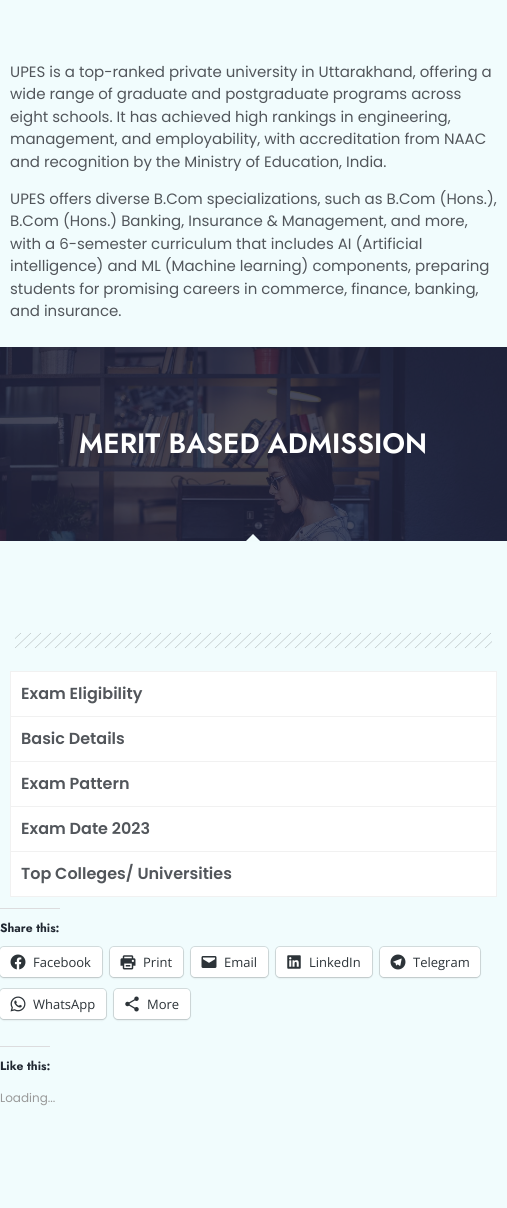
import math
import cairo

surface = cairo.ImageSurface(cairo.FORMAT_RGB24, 507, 1208)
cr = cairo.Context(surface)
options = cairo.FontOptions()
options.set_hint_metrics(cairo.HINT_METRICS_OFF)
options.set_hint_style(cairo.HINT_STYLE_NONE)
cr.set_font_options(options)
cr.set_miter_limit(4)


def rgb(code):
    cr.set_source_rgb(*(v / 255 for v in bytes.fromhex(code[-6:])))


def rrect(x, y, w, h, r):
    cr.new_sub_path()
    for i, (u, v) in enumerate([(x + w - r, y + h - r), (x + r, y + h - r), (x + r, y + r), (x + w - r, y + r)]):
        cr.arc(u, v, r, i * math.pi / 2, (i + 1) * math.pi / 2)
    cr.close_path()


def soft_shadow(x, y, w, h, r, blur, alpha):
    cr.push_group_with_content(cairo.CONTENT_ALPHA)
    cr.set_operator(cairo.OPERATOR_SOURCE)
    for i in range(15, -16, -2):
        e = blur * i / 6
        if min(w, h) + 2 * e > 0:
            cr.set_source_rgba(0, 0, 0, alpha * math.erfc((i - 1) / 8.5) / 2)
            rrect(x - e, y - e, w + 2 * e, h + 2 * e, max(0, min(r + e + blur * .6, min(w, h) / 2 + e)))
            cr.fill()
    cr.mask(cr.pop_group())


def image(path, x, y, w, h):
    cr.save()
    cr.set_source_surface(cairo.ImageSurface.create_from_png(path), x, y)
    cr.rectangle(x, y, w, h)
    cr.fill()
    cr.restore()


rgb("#f1fcfd")
cr.paint()
image("img/1.png", 0, 347, 507, 194)
rgb("#f0fbfc")
cr.new_path()
cr.move_to(253, 534)
cr.line_to(260.5, 541.5)
cr.line_to(245.5, 541.5)
cr.close_path()
cr.fill()
image("img/2.png", 15, 633, 477, 15)
for x, y, w, h, color in [
    (11, 672, 485, 224, "#ffffff"),
    (10, 896, 487, 1, "#f1f1f1"),
    (10, 671, 487, 1, "#f1f1f1"),
    (496, 671, 1, 45, "#f1f1f1"),
    (10, 671, 1, 45, "#f1f1f1"),
    (10, 716, 487, 1, "#f1f1f1"),
    (496, 716, 1, 45, "#f1f1f1"),
    (10, 716, 1, 45, "#f1f1f1"),
    (10, 761, 487, 1, "#f1f1f1"),
    (496, 761, 1, 45, "#f1f1f1"),
    (10, 761, 1, 45, "#f1f1f1"),
    (10, 806, 487, 1, "#f1f1f1"),
    (496, 806, 1, 45, "#f1f1f1"),
    (10, 806, 1, 45, "#f1f1f1"),
    (10, 851, 487, 1, "#f1f1f1"),
    (496, 851, 1, 45, "#f1f1f1"),
    (10, 851, 1, 45, "#f1f1f1"),
    (0, 908, 60, 1, "#dcdcde"),
]:
    rgb(color)
    cr.rectangle(x, y, w, h)
    cr.fill()
rrect(-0.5, 946.5, 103, 31, 4.5)
rgb("#d4dedf")
cr.set_line_width(1)
cr.stroke()
rgb("#000000")
soft_shadow(0, 948, 102, 30, 4, 1, 0.12)
rgb("#ffffff")
rrect(0, 947, 102, 30, 4)
cr.fill()
image("img/3.png", 10, 954, 16, 16)
rrect(109.5, 946.5, 74, 31, 4.5)
rgb("#d4dedf")
cr.stroke()
rgb("#000000")
soft_shadow(110, 948, 73, 30, 4, 1, 0.12)
rgb("#ffffff")
rrect(110, 947, 73, 30, 4)
cr.fill()
image("img/4.png", 120, 955, 16, 15)
rrect(190.5, 946.5, 78, 31, 4.5)
rgb("#d4dedf")
cr.stroke()
rgb("#000000")
soft_shadow(191, 948, 77, 30, 4, 1, 0.12)
rgb("#ffffff")
rrect(191, 947, 77, 30, 4)
cr.fill()
image("img/5.png", 201, 956, 16, 12)
rrect(275.5, 946.5, 97, 31, 4.5)
rgb("#d4dedf")
cr.stroke()
rgb("#000000")
soft_shadow(276, 948, 96, 30, 4, 1, 0.12)
rgb("#ffffff")
rrect(276, 947, 96, 30, 4)
cr.fill()
image("img/6.png", 287, 955, 14, 14)
rrect(379.5, 946.5, 101, 31, 4.5)
rgb("#d4dedf")
cr.stroke()
rgb("#000000")
soft_shadow(380, 948, 100, 30, 4, 1, 0.12)
rgb("#ffffff")
rrect(380, 947, 100, 30, 4)
cr.fill()
image("img/7.png", 390, 954, 16, 16)
rrect(-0.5, 988.5, 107, 31, 4.5)
rgb("#d4dedf")
cr.stroke()
rgb("#000000")
soft_shadow(0, 990, 106, 30, 4, 1, 0.12)
rgb("#ffffff")
rrect(0, 989, 106, 30, 4)
cr.fill()
image("img/8.png", 10, 996, 16, 16)
rrect(113.5, 988.5, 77, 31, 4.5)
rgb("#d4dedf")
cr.stroke()
rgb("#000000")
soft_shadow(114, 990, 76, 30, 4, 1, 0.12)
rgb("#ffffff")
rrect(114, 989, 76, 30, 4)
cr.fill()
image("img/9.png", 125, 996, 14, 16)
rgb("#dcdcde")
cr.rectangle(0, 1046, 50, 1)
cr.fill()
cr.select_font_face("Poppins")
cr.set_font_size(15)
rgb("#52565b")
for x, y, s in [
    (10, 77, "UPES is a top-ranked private university in Uttarakhand, offering a"),
    (10, 99, "wide range of graduate and postgraduate programs across"),
    (10, 122, "eight schools. It has achieved high rankings in engineering,"),
    (10, 144, "management, and employability, with accreditation from NAAC"),
    (10, 167, "and recognition by the Ministry of Education, India."),
    (10, 204, "UPES offers diverse B.Com specializations, such as B.Com (Hons.),"),
    (10, 226, "B.Com (Hons.) Banking, Insurance & Management, and more,"),
    (10, 249, "with a 6-semester curriculum that includes AI (Artificial"),
    (10, 271, "intelligence) and ML (Machine learning) components, preparing"),
    (10, 294, "students for promising careers in commerce, finance, banking,"),
    (10, 316, "and insurance."),
]:
    cr.move_to(x, y)
    cr.show_text(s)
cr.select_font_face("Jost SemiBold")
cr.set_font_size(28)
rgb("#ffffff")
cr.move_to(79, 453)
cr.show_text("MERIT BASED ADMISSION")
cr.select_font_face("Poppins SemiBold")
cr.set_font_size(16)
rgb("#52565b")
for x, y, s in [
    (21, 699, "Exam Eligibility"),
    (21, 744, "Basic Details"),
    (21, 789, "Exam Pattern"),
    (21, 834, "Exam Date 2023"),
    (21, 879, "Top Colleges/ Universities"),
]:
    cr.move_to(x, y)
    cr.show_text(s)
cr.select_font_face("Jost", cairo.FONT_SLANT_NORMAL, cairo.FONT_WEIGHT_BOLD)
cr.set_font_size(12)
rgb("#212832")
cr.move_to(0, 932)
cr.show_text("Share this:")
cr.select_font_face("Open Sans")
cr.set_font_size(13)
rgb("#2c3338")
for x, y, s in [
    (33, 967, "Facebook"),
    (143, 967, "Print"),
    (224, 967, "Email"),
    (309, 967, "LinkedIn"),
    (413, 967, "Telegram"),
    (33, 1009, "WhatsApp"),
    (147, 1009, "More"),
]:
    cr.move_to(x, y)
    cr.show_text(s)
cr.select_font_face("Jost", cairo.FONT_SLANT_NORMAL, cairo.FONT_WEIGHT_BOLD)
cr.set_font_size(12)
rgb("#212832")
cr.move_to(0, 1070)
cr.show_text("Like this:")
cr.select_font_face("Poppins")
rgb("#999999")
cr.move_to(0, 1102)
cr.show_text("Loading...")
surface.write_to_png("page.png")
